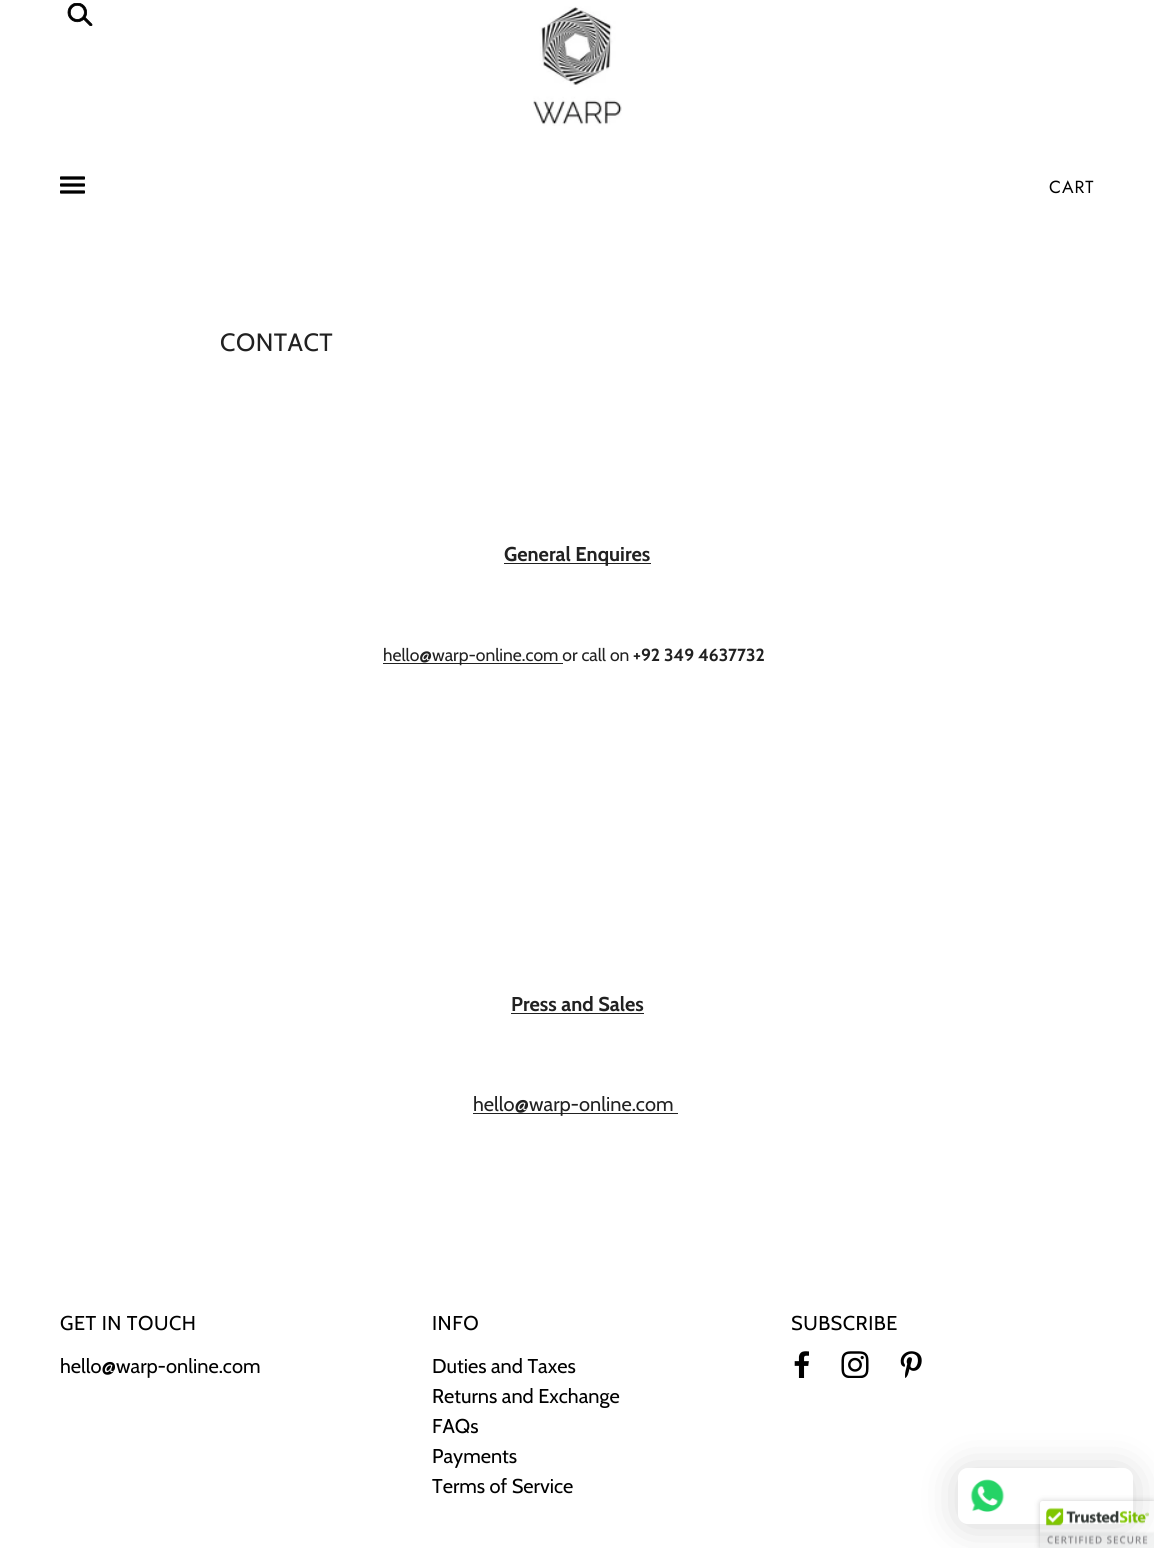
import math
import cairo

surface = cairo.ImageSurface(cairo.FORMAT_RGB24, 1154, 1548)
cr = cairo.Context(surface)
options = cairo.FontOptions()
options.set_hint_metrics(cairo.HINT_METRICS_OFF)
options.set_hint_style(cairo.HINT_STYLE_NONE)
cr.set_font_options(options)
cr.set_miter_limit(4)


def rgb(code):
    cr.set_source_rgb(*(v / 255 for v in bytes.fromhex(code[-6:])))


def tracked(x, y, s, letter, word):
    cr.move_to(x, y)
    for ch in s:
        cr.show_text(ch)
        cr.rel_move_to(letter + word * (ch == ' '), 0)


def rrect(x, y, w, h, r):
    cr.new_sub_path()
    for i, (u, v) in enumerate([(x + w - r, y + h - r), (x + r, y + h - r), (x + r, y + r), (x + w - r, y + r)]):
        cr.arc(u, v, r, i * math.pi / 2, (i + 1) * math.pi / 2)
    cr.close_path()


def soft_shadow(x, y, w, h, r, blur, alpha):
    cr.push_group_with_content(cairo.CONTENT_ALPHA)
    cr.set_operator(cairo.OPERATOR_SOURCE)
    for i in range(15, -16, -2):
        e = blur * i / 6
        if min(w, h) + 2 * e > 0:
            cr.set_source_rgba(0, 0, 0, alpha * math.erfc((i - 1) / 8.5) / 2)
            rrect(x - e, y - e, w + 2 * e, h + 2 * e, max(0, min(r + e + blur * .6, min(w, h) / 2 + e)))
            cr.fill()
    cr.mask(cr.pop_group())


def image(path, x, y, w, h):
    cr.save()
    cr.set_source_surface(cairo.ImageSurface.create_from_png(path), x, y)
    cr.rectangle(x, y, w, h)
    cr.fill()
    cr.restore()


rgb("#ffffff")
cr.paint()
image("img/1.png", 67, 3, 26, 23)
image("img/2.png", 533, 6, 89, 120)
image("img/3.png", 60, 176, 25, 18)
for x, y, w, h, color in [
    (504, 563, 147, 1, "#212121"),
    (383, 663, 180, 1, "#212121"),
    (511, 1013, 133, 1, "#212121"),
    (473, 1113, 205, 1, "#212121"),
]:
    rgb(color)
    cr.rectangle(x, y, w, h)
    cr.fill()
image("img/4.png", 794, 1351, 15, 27)
image("img/5.png", 841, 1351, 28, 27)
image("img/6.png", 900, 1351, 22, 27)
rgb("#000000")
soft_shadow(1040, 1501, 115, 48, 2.5, 3, 0.2)
rgb("#ffffff")
cr.new_path()
cr.move_to(1042.5, 1501)
cr.line_to(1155, 1501)
cr.line_to(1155, 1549)
cr.line_to(1040, 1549)
cr.line_to(1040, 1503.5)
cr.curve_to(1040, 1502, 1041, 1501, 1042.5, 1501)
cr.close_path()
cr.fill()
image("img/8.png", 1040, 1507, 114, 41)
cr.save()
cr.set_fill_rule(cairo.FILL_RULE_EVEN_ODD)
cr.new_path()
cr.move_to(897, 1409)
cr.line_to(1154, 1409)
cr.line_to(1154, 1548)
cr.line_to(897, 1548)
cr.close_path()
cr.move_to(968, 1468)
cr.line_to(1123, 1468)
cr.curve_to(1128.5, 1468, 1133, 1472.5, 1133, 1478)
cr.line_to(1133, 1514)
cr.curve_to(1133, 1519.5, 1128.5, 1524, 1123, 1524)
cr.line_to(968, 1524)
cr.curve_to(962.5, 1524, 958, 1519.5, 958, 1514)
cr.line_to(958, 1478)
cr.curve_to(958, 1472.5, 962.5, 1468, 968, 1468)
cr.close_path()
cr.clip()
rgb("#000000")
soft_shadow(958, 1470, 175, 56, 10, 20, 0.16)
cr.restore()
image("img/7.png", 970, 1479, 35, 33)
cr.select_font_face("Jost")
cr.set_font_size(17.5)
rgb("#000000")
tracked(1049, 193, "CART", 1, 0)
cr.select_font_face("Cabin")
cr.set_font_size(25)
rgb("#212121")
tracked(220, 351, "CONTACT", 0.5, 0)
cr.select_font_face("Cabin", cairo.FONT_SLANT_NORMAL, cairo.FONT_WEIGHT_BOLD)
cr.set_font_size(20)
cr.move_to(504, 561)
cr.show_text("General Enquires")
cr.select_font_face("Cabin")
cr.set_font_size(17.5)
cr.move_to(383, 661)
cr.show_text("hello@warp-online.com or call on")
cr.select_font_face("Cabin", cairo.FONT_SLANT_NORMAL, cairo.FONT_WEIGHT_BOLD)
cr.move_to(633, 661)
cr.show_text("+92 349 4637732")
cr.set_font_size(20)
cr.move_to(511, 1011)
cr.show_text("Press and Sales")
cr.select_font_face("Cabin")
cr.move_to(473, 1111)
cr.show_text("hello@warp-online.com")
rgb("#000000")
tracked(60, 1330, "GET IN TOUCH", 0.5, 0)
cr.move_to(60, 1373)
cr.show_text("hello@warp-online.com")
tracked(432, 1330, "INFO", 0.5, 0)
for x, y, s in [
    (432, 1373, "Duties and Taxes"),
    (432, 1403, "Returns and Exchange"),
    (432, 1433, "FAQs"),
    (432, 1463, "Payments"),
    (432, 1493, "Terms of Service"),
]:
    cr.move_to(x, y)
    cr.show_text(s)
tracked(791, 1330, "SUBSCRIBE", 0.5, 0)
surface.write_to_png("page.png")
